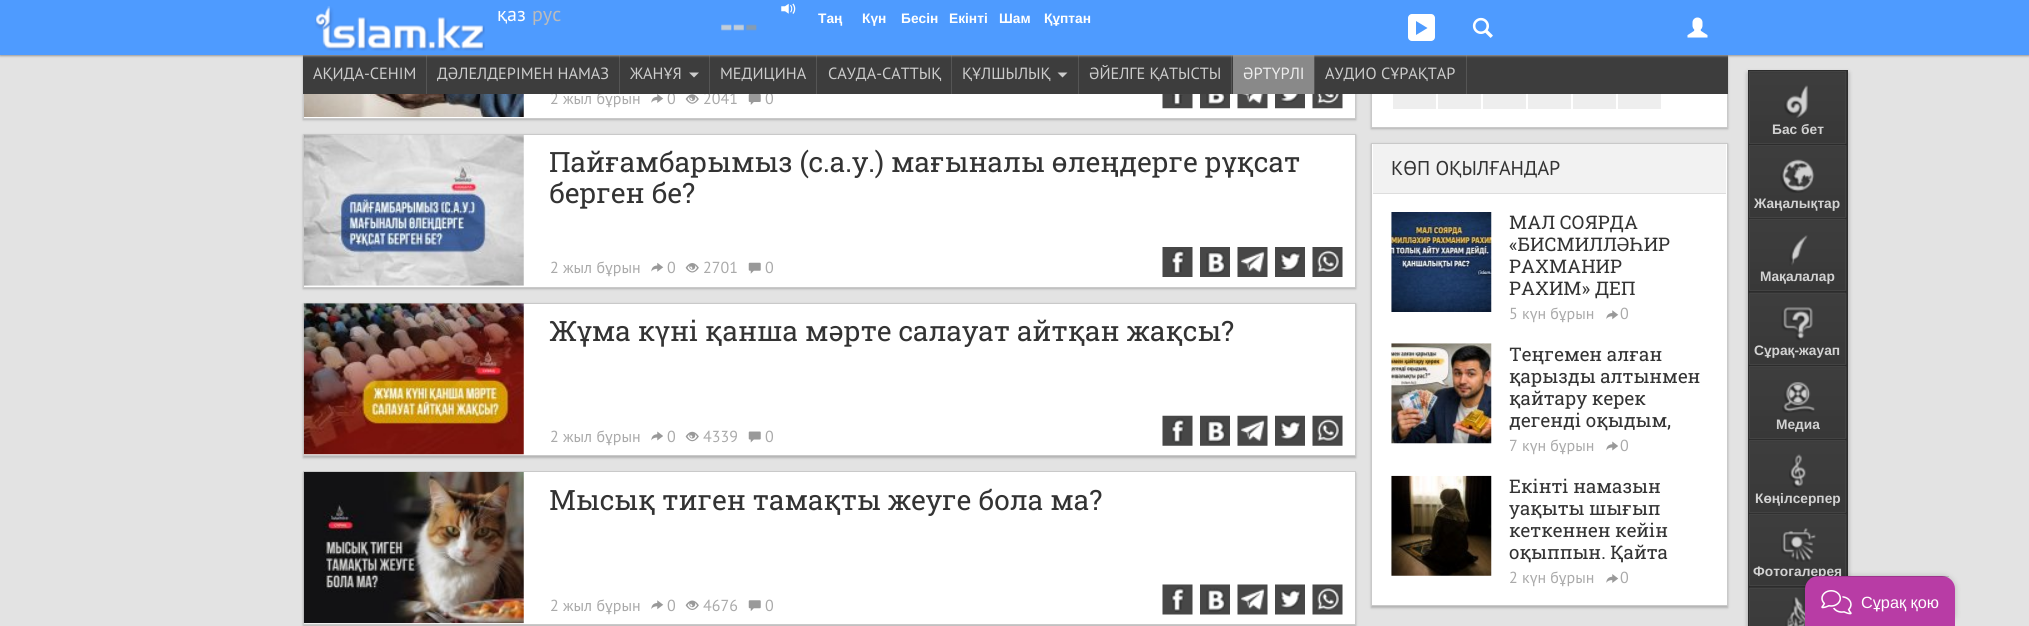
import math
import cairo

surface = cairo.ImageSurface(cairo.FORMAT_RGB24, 2029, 626)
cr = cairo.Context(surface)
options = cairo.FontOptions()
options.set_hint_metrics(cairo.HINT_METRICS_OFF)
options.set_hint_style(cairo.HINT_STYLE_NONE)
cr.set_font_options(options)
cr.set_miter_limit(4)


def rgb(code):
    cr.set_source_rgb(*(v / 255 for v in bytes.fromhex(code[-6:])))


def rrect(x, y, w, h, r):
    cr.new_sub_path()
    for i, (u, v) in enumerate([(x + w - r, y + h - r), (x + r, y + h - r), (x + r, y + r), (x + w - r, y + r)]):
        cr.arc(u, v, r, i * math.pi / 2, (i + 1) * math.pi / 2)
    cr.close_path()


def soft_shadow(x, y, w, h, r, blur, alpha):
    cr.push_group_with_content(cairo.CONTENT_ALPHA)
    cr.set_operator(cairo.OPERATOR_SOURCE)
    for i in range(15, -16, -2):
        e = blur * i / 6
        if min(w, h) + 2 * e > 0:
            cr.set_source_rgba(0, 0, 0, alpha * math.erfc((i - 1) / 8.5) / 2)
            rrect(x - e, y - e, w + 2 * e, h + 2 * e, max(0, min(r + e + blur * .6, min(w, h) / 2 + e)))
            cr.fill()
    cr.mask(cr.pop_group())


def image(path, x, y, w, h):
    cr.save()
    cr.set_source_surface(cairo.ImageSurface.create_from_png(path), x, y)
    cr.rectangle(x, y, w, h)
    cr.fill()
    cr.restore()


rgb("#e3e3e3")
cr.paint()
rgb("#b3b3b3")
soft_shadow(303, -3, 1053, 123, 0, 1, 1)
rgb("#ffffff")
cr.rectangle(304, 94, 1051, 24)
cr.fill()
cr.rectangle(303.5, -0.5, 1052, 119)
rgb("#c9c9c9")
cr.set_line_width(1)
cr.stroke()
image("img/6.png", 304, 94, 220, 23)
image("img/7.png", 651, 94, 13, 9)
image("img/8.png", 685, 94, 14, 10)
image("img/9.png", 748, 94, 13, 11)
image("img/10.png", 1162, 94, 31, 15)
image("img/11.png", 1200, 94, 30, 15)
image("img/12.png", 1237, 94, 31, 15)
image("img/13.png", 1275, 94, 30, 15)
image("img/14.png", 1312, 94, 31, 15)
rgb("#b3b3b3")
soft_shadow(303, 135, 1053, 154, 0, 1, 1)
rgb("#ffffff")
cr.rectangle(303.5, 134.5, 1052, 153)
cr.fill_preserve()
rgb("#c9c9c9")
cr.stroke()
image("img/15.png", 304, 134, 220, 152)
image("img/16.png", 651, 263, 13, 9)
image("img/17.png", 685, 263, 14, 10)
image("img/18.png", 748, 262, 13, 12)
image("img/19.png", 1162, 247, 31, 30)
image("img/20.png", 1200, 247, 30, 30)
image("img/21.png", 1237, 247, 31, 30)
image("img/22.png", 1275, 247, 30, 30)
image("img/23.png", 1312, 247, 31, 30)
rgb("#b3b3b3")
soft_shadow(303, 304, 1053, 154, 0, 1, 1)
rgb("#ffffff")
cr.rectangle(303.5, 303.5, 1052, 152)
cr.fill_preserve()
rgb("#c9c9c9")
cr.stroke()
image("img/24.png", 303, 303, 221, 152)
image("img/25.png", 651, 431, 12, 10)
image("img/26.png", 685, 431, 14, 11)
image("img/27.png", 748, 431, 13, 12)
image("img/28.png", 1162, 415, 31, 31)
image("img/29.png", 1200, 415, 30, 31)
image("img/30.png", 1237, 415, 31, 31)
image("img/31.png", 1275, 415, 30, 31)
image("img/32.png", 1312, 415, 31, 31)
rgb("#b3b3b3")
soft_shadow(303, 473, 1053, 153, 0, 1, 1)
rgb("#ffffff")
cr.rectangle(303.5, 471.5, 1052, 153)
cr.fill_preserve()
rgb("#c9c9c9")
cr.stroke()
image("img/33.png", 303, 472, 221, 152)
image("img/34.png", 651, 600, 13, 10)
image("img/35.png", 685, 600, 14, 10)
image("img/36.png", 748, 600, 13, 11)
image("img/37.png", 1162, 584, 31, 31)
image("img/38.png", 1200, 584, 30, 31)
image("img/39.png", 1237, 584, 31, 31)
image("img/40.png", 1275, 584, 30, 31)
image("img/41.png", 1312, 584, 31, 31)
rgb("#b3b3b3")
soft_shadow(1371, -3, 357, 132, 0, 1, 1)
rgb("#ffffff")
cr.rectangle(1372, 94, 355, 33)
cr.fill()
cr.rectangle(1371.5, -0.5, 356, 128)
rgb("#c9c9c9")
cr.stroke()
for x, y, w, h, color in [
    (1393, 94, 43, 15, "#eeeeee"),
    (1438, 94, 43, 15, "#eeeeee"),
    (1483, 94, 43, 15, "#eeeeee"),
    (1528, 94, 43, 15, "#eeeeee"),
    (1573, 94, 43, 15, "#eeeeee"),
    (1618, 94, 43, 15, "#eeeeee"),
]:
    rgb(color)
    cr.rectangle(x, y, w, h)
    cr.fill()
rgb("#b3b3b3")
soft_shadow(1371, 144, 357, 464, 0, 1, 1)
rgb("#ffffff")
cr.rectangle(1371.5, 143.5, 356, 462)
cr.fill_preserve()
rgb("#c9c9c9")
cr.stroke()
rgb("#f2f2f2")
cr.rectangle(1373, 144, 353, 49)
cr.fill()
rgb("#dddddd")
cr.rectangle(1373, 193, 353, 1)
cr.fill()
image("img/42.png", 1391, 212, 101, 100)
image("img/34.png", 1606, 310, 13, 10)
image("img/43.png", 1391, 343, 101, 101)
image("img/25.png", 1606, 441, 12, 10)
image("img/44.png", 1391, 475, 101, 101)
image("img/7.png", 1606, 574, 13, 9)
rgb("#000000")
soft_shadow(1748, 73, 100, 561, 0, 2.5, 0.3)
rgb("#2e2e2e")
cr.rectangle(1846, 71, 1, 505)
cr.fill()
cr.rectangle(1748.5, 70.5, 99, 74)
rgb("#2c2c2c")
cr.stroke()
image("img/45.png", 1750, 71, 97, 73)
cr.rectangle(1749.5, 71.5, 96, 72)
rgb("#434343")
cr.stroke()
image("img/46.png", 1784, 85, 24, 33)
cr.rectangle(1748.5, 144.5, 99, 74)
rgb("#2c2c2c")
cr.stroke()
image("img/47.png", 1750, 145, 97, 73)
cr.rectangle(1749.5, 145.5, 96, 72)
rgb("#434343")
cr.stroke()
image("img/48.png", 1780, 159, 35, 34)
cr.rectangle(1748.5, 218.5, 99, 74)
rgb("#2c2c2c")
cr.stroke()
image("img/49.png", 1749, 218, 98, 73)
cr.rectangle(1749.5, 219.5, 96, 71)
rgb("#434343")
cr.stroke()
image("img/50.png", 1789, 235, 19, 31)
cr.rectangle(1748.5, 291.5, 99, 74)
rgb("#2c2c2c")
cr.stroke()
image("img/51.png", 1748, 292, 99, 73)
cr.rectangle(1749.5, 293.5, 96, 71)
rgb("#434343")
cr.stroke()
image("img/52.png", 1781, 307, 32, 34)
cr.rectangle(1748.5, 365.5, 99, 74)
rgb("#2c2c2c")
cr.stroke()
image("img/53.png", 1750, 366, 97, 73)
cr.rectangle(1749.5, 366.5, 96, 72)
rgb("#434343")
cr.stroke()
image("img/54.png", 1782, 382, 33, 31)
cr.rectangle(1748.5, 439.5, 99, 74)
rgb("#2c2c2c")
cr.stroke()
image("img/55.png", 1750, 440, 97, 72)
cr.rectangle(1749.5, 440.5, 96, 72)
rgb("#434343")
cr.stroke()
image("img/56.png", 1789, 454, 17, 34)
cr.rectangle(1748.5, 513.5, 99, 74)
rgb("#2c2c2c")
cr.stroke()
image("img/57.png", 1749, 513, 98, 72)
cr.rectangle(1749.5, 514.5, 96, 71)
rgb("#434343")
cr.stroke()
image("img/58.png", 1781, 528, 35, 34)
cr.rectangle(1748.5, 586.5, 99, 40)
rgb("#2c2c2c")
cr.stroke()
image("img/59.png", 1749, 587, 57, 39)
cr.rectangle(1749.5, 588.5, 96, 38)
rgb("#434343")
cr.stroke()
image("img/60.png", 1785, 597, 20, 29)
rgb("#000000")
soft_shadow(1805, 576, 150, 50, 13, 3, 0.2)
cr.select_font_face("PT Sans")
cr.set_font_size(16)
rgb("#aaaaaa")
for x, y, s in [
    (550, 104, "2 жыл бұрын"),
    (667, 104, "0"),
    (703, 104, "2041"),
    (765, 104, "0"),
]:
    cr.move_to(x, y)
    cr.show_text(s)
for x, y, w, h, color in [
    (303, 55, 1425, 39, "#3d3d3d"),
    (1466, 55, 1, 39, "#555555"),
    (1314, 55, 1, 39, "#555555"),
    (1233, 55, 81, 39, "#898989"),
    (1231, 55, 1, 39, "#555555"),
    (1078, 55, 1, 39, "#555555"),
    (951, 55, 1, 39, "#555555"),
    (816, 55, 1, 39, "#555555"),
    (709, 55, 1, 39, "#555555"),
    (619, 55, 1, 39, "#555555"),
    (426, 55, 1, 39, "#555555"),
]:
    rgb(color)
    cr.rectangle(x, y, w, h)
    cr.fill()
rgb("#999999")
soft_shadow(0, 1, 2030, 55, 0, 1, 1)
rgb("#4e9bff")
cr.rectangle(0, 0, 2029, 55)
cr.fill()
image("img/2.png", 781, 3, 15, 11)
image("img/3.png", 721, 24, 36, 7)
cr.select_font_face("Liberation Sans", cairo.FONT_SLANT_NORMAL, cairo.FONT_WEIGHT_BOLD)
cr.set_font_size(13.75)
rgb("#ffffff")
for x, y, s in [
    (1044, 23, "Құптан"),
    (999, 23, "Шам"),
    (949, 23, "Екінті"),
    (901, 23, "Бесін"),
    (862, 23, "Күн"),
    (818, 23, "Таң"),
]:
    cr.move_to(x, y)
    cr.show_text(s)
rrect(1408, 14, 27, 27, 4)
cr.fill()
rgb("#4e9bff")
cr.new_path()
cr.move_to(1416, 35)
cr.line_to(1427.5, 28)
cr.line_to(1416, 21)
cr.close_path()
cr.fill()
image("img/4.png", 1472, 17, 21, 21)
image("img/5.png", 1687, 17, 21, 21)
cr.select_font_face("PT Sans")
cr.set_font_size(20)
rgb("#bbbbbb")
cr.move_to(532, 21)
cr.show_text("рус")
rgb("#ffffff")
cr.move_to(497, 21)
cr.show_text("қаз")
image("img/1.png", 315, 6, 170, 45)
cr.set_font_size(16.25)
rgb("#cccccc")
cr.move_to(1325, 79)
cr.show_text("АУДИО СҰРАҚТАР")
rgb("#eeeeee")
cr.move_to(1243, 79)
cr.show_text("ӘРТҮРЛІ")
rgb("#cccccc")
cr.move_to(1089, 79)
cr.show_text("ӘЙЕЛГЕ ҚАТЫСТЫ")
cr.new_path()
cr.move_to(1057.5, 72.5)
cr.line_to(1067.5, 72.5)
cr.line_to(1062.5, 77.5)
cr.close_path()
cr.fill()
for x, y, s in [
    (962, 79, "ҚҰЛШЫЛЫҚ"),
    (828, 79, "САУДА-САТТЫҚ"),
    (720, 79, "МЕДИЦИНА"),
]:
    cr.move_to(x, y)
    cr.show_text(s)
cr.new_path()
cr.move_to(689, 72.5)
cr.line_to(699, 72.5)
cr.line_to(694, 77.5)
cr.close_path()
cr.fill()
for x, y, s in [
    (630, 79, "ЖАНҰЯ"),
    (437, 79, "ДӘЛЕЛДЕРІМЕН НАМАЗ"),
    (313, 79, "АҚИДА-СЕНІМ"),
]:
    cr.move_to(x, y)
    cr.show_text(s)
cr.select_font_face("Roboto Slab")
cr.set_font_size(28)
rgb("#333333")
cr.move_to(549, 172)
cr.show_text("Пайғамбарымыз (с.а.у.) мағыналы өлеңдерге рұқсат")
cr.move_to(549, 203)
cr.show_text("берген бе?")
cr.select_font_face("PT Sans")
cr.set_font_size(16)
rgb("#aaaaaa")
for x, y, s in [
    (550, 273, "2 жыл бұрын"),
    (667, 273, "0"),
    (703, 273, "2701"),
    (765, 273, "0"),
]:
    cr.move_to(x, y)
    cr.show_text(s)
cr.select_font_face("Roboto Slab")
cr.set_font_size(28)
rgb("#333333")
cr.move_to(549, 341)
cr.show_text("Жұма күні қанша мәрте салауат айтқан жақсы?")
cr.select_font_face("PT Sans")
cr.set_font_size(16)
rgb("#aaaaaa")
for x, y, s in [
    (550, 442, "2 жыл бұрын"),
    (667, 442, "0"),
    (703, 442, "4339"),
    (765, 442, "0"),
]:
    cr.move_to(x, y)
    cr.show_text(s)
cr.select_font_face("Roboto Slab")
cr.set_font_size(28)
rgb("#333333")
cr.move_to(549, 510)
cr.show_text("Мысық тиген тамақты жеуге бола ма?")
cr.select_font_face("PT Sans")
cr.set_font_size(16)
rgb("#aaaaaa")
for x, y, s in [
    (550, 611, "2 жыл бұрын"),
    (667, 611, "0"),
    (703, 611, "4676"),
    (765, 611, "0"),
]:
    cr.move_to(x, y)
    cr.show_text(s)
cr.set_font_size(20)
rgb("#333333")
cr.move_to(1391, 175)
cr.show_text("КӨП ОҚЫЛҒАНДАР")
cr.select_font_face("Roboto Slab")
cr.set_font_size(18.75)
for x, y, s in [
    (1509, 229, "МАЛ СОЯРДА"),
    (1509, 251, "«БИСМИЛЛӘҺИР"),
    (1509, 273, "РАХМАНИР"),
    (1509, 295, "РАХИМ» ДЕП"),
]:
    cr.move_to(x, y)
    cr.show_text(s)
cr.select_font_face("PT Sans")
cr.set_font_size(16)
rgb("#aaaaaa")
cr.move_to(1509, 319)
cr.show_text("5 күн бұрын")
cr.move_to(1620, 319)
cr.show_text("0")
cr.select_font_face("Roboto Slab")
cr.set_font_size(18.75)
rgb("#333333")
for x, y, s in [
    (1509, 361, "Теңгемен алған"),
    (1509, 383, "қарызды алтынмен"),
    (1509, 405, "қайтару керек"),
    (1509, 427, "дегенді оқыдым,"),
]:
    cr.move_to(x, y)
    cr.show_text(s)
cr.select_font_face("PT Sans")
cr.set_font_size(16)
rgb("#aaaaaa")
cr.move_to(1509, 451)
cr.show_text("7 күн бұрын")
cr.move_to(1620, 451)
cr.show_text("0")
cr.select_font_face("Roboto Slab")
cr.set_font_size(18.75)
rgb("#333333")
for x, y, s in [
    (1509, 493, "Екінті намазын"),
    (1509, 515, "уақыты шығып"),
    (1509, 537, "кеткеннен кейін"),
    (1509, 559, "оқыппын. Қайта"),
]:
    cr.move_to(x, y)
    cr.show_text(s)
cr.select_font_face("PT Sans")
cr.set_font_size(16)
rgb("#aaaaaa")
cr.move_to(1509, 583)
cr.show_text("2 күн бұрын")
cr.move_to(1620, 583)
cr.show_text("0")
cr.select_font_face("Liberation Sans", cairo.FONT_SLANT_NORMAL, cairo.FONT_WEIGHT_BOLD)
cr.set_font_size(13.75)
rgb("#d2d2d2")
for x, y, s in [
    (1772, 134, "Бас бет"),
    (1754, 208, "Жаңалықтар"),
    (1760, 281, "Мақалалар"),
    (1754, 355, "Сұрақ-жауап"),
    (1776, 429, "Медиа"),
    (1755, 503, "Көңілсерпер"),
    (1753, 576, "Фотогалерея"),
]:
    cr.move_to(x, y)
    cr.show_text(s)
rgb("#b83ca5")
cr.new_path()
cr.move_to(1818, 576)
cr.line_to(1942, 576)
cr.curve_to(1949, 576, 1955, 582, 1955, 589)
cr.line_to(1955, 626)
cr.line_to(1805, 626)
cr.line_to(1805, 589)
cr.curve_to(1805, 582, 1811, 576, 1818, 576)
cr.close_path()
cr.fill()
cr.set_source_rgba(0, 0, 0, 0.15)
cr.rectangle(1811, 576, 138, 1)
cr.fill()
image("img/61.png", 1821, 590, 31, 25)
cr.select_font_face("Liberation Sans")
cr.set_font_size(16.25)
rgb("#ffffff")
cr.move_to(1861, 608)
cr.show_text("Сұрақ қою")
surface.write_to_png("page.png")
